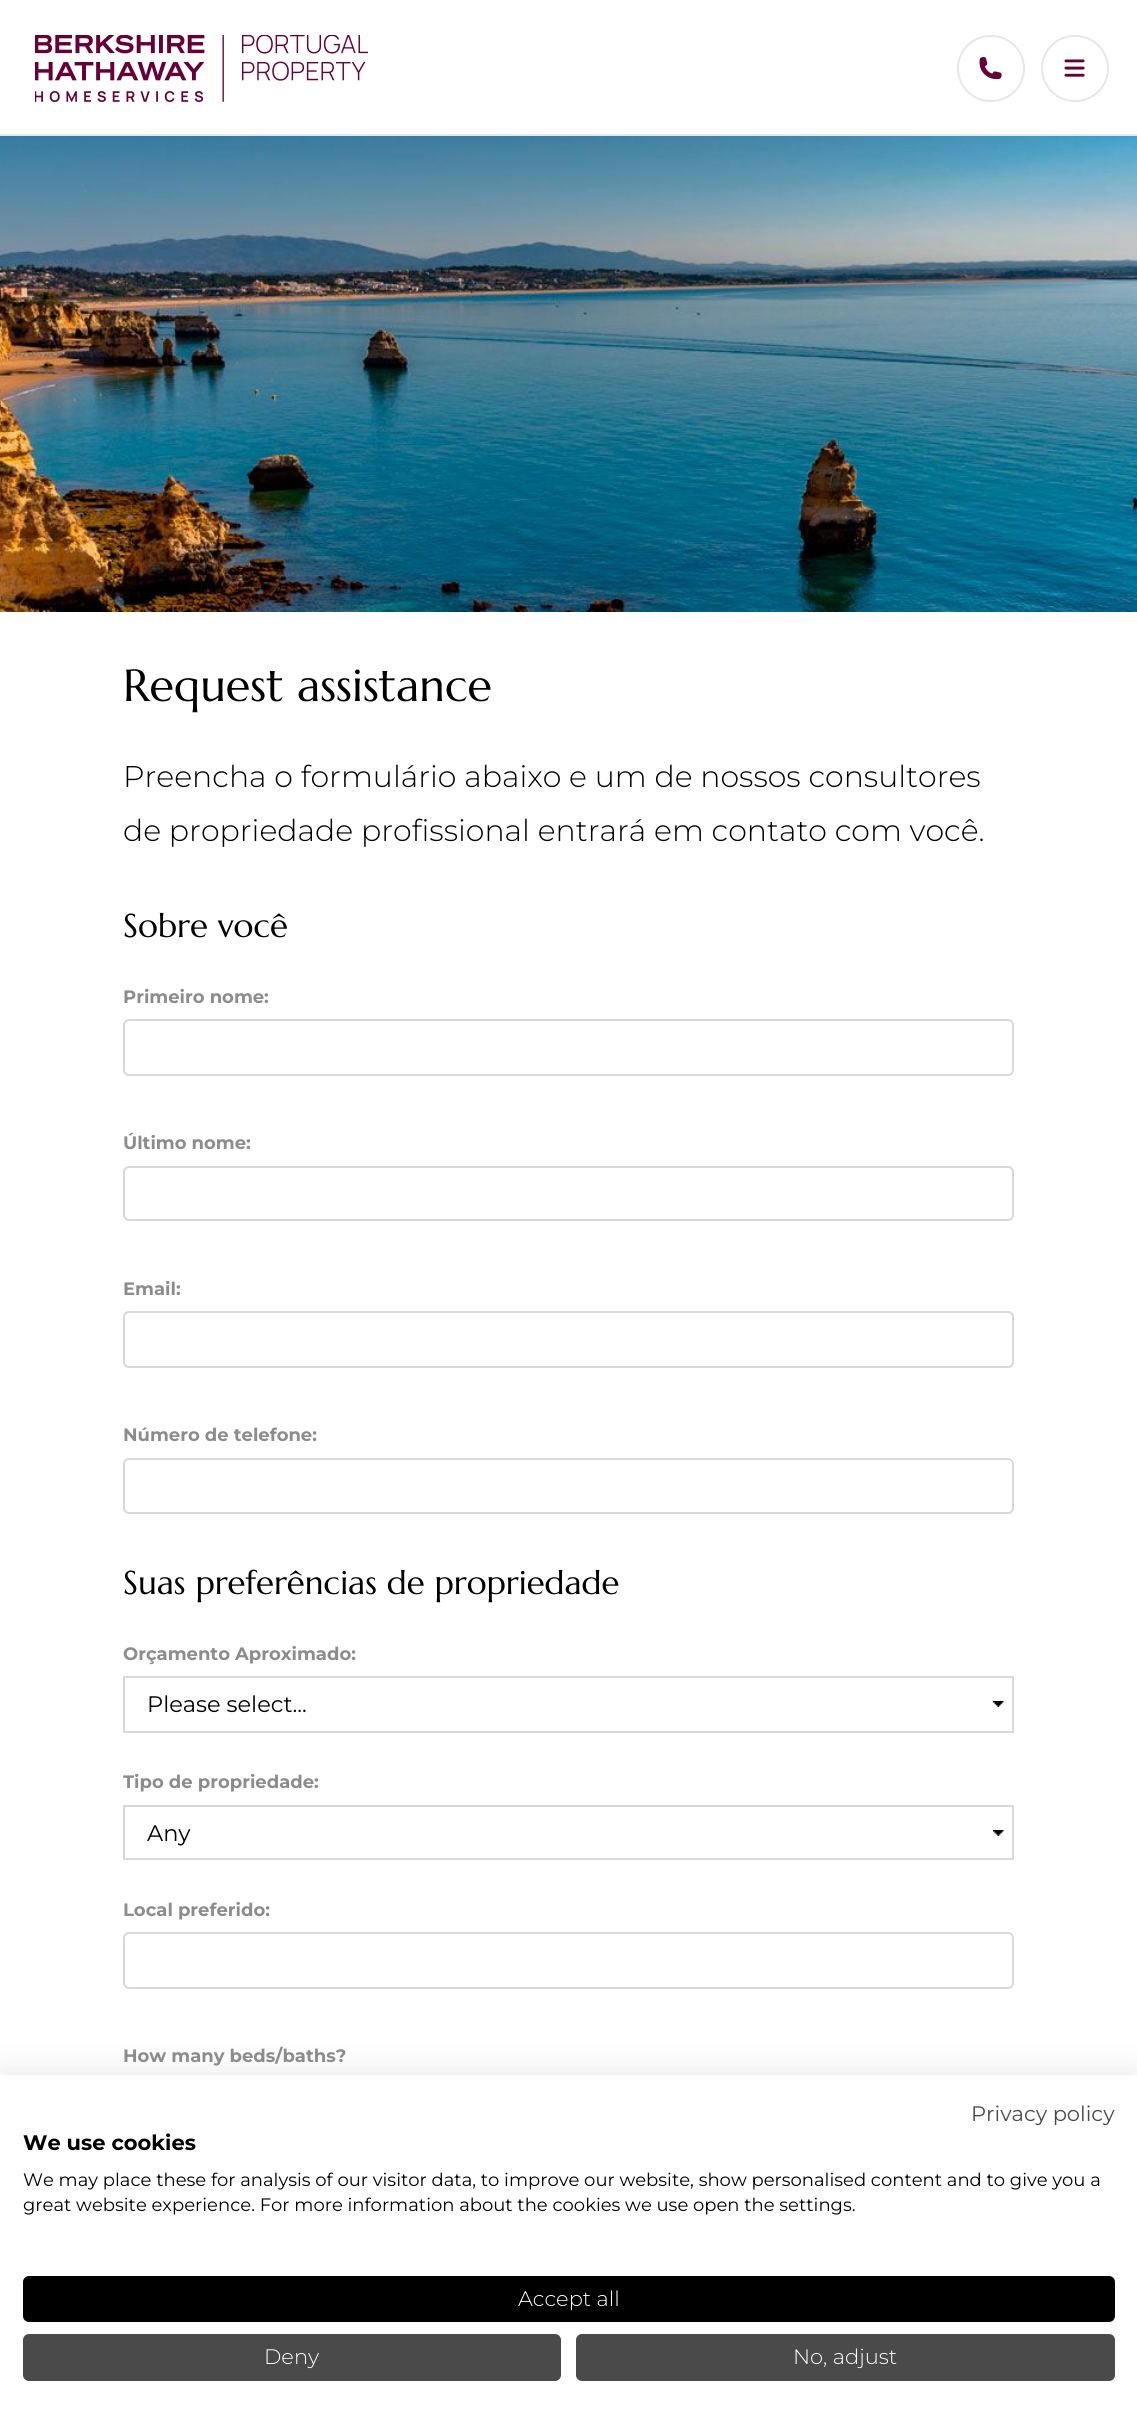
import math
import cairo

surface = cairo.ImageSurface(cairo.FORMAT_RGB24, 1137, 2421)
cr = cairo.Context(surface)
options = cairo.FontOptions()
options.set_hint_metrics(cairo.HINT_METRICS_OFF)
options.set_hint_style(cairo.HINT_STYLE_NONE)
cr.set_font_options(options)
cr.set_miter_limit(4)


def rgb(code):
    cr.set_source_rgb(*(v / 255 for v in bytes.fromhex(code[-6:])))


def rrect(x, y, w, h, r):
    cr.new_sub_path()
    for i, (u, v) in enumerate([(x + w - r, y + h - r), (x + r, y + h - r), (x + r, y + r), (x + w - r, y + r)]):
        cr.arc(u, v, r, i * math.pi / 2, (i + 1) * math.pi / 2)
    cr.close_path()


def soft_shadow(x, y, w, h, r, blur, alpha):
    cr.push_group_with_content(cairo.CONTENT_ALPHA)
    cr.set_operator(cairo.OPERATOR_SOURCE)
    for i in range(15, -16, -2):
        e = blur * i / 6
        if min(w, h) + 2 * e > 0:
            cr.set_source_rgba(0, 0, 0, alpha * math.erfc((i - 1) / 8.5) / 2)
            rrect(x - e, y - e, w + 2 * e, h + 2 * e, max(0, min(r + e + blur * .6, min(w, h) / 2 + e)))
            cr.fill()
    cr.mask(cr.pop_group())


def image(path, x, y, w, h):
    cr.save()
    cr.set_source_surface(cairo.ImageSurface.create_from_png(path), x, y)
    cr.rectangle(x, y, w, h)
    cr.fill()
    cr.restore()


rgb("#ffffff")
cr.paint()
image("img/1.png", 35, 35, 333, 67)
rrect(958, 36, 66, 65, 32.5)
rgb("#e5e7eb")
cr.stroke()
image("img/2.png", 979, 57, 23, 23)
rrect(1042, 36, 66, 65, 32.5)
cr.stroke()
image("img/3.png", 1064, 59, 21, 18)
cr.rectangle(0, 134, 1137, 2)
cr.fill()
image("img/4.png", 0, 136, 1137, 476)
rrect(124, 1020, 889, 55, 5)
rgb("#d9d9d9")
cr.stroke()
rrect(124, 1167, 889, 53, 5)
cr.stroke()
rrect(124, 1312, 889, 55, 5)
cr.stroke()
rrect(124, 1459, 889, 54, 5)
cr.stroke()
image("img/5.png", 993, 1701, 11, 6)
cr.rectangle(124, 1677, 889, 55)
cr.stroke()
image("img/5.png", 993, 1830, 11, 6)
cr.rectangle(124, 1806, 889, 53)
cr.stroke()
rrect(124, 1933, 889, 55, 5)
cr.stroke()
rgb("#000000")
soft_shadow(0, 2075, 1137, 346, 0, 18, 0.1)
rgb("#ffffff")
cr.rectangle(0, 2075, 1137, 346)
cr.fill()
rgb("#000000")
rrect(24, 2277, 1090, 44, 5)
cr.fill_preserve()
cr.stroke()
rgb("#4a4a4a")
rrect(24, 2335, 536, 45, 5)
cr.fill_preserve()
cr.stroke()
rrect(577, 2335, 537, 45, 5)
cr.fill_preserve()
cr.stroke()
cr.select_font_face("Marcellus")
cr.set_font_size(45)
rgb("#000000")
cr.move_to(123, 701)
cr.show_text("Request assistance")
cr.select_font_face("Montserrat Thin")
cr.set_font_size(30)
cr.move_to(123, 787)
cr.show_text("Preencha o formulário abaixo e um de nossos consultores")
cr.move_to(123, 841)
cr.show_text("de propriedade profissional entrará em contato com você.")
cr.select_font_face("Marcellus")
cr.set_font_size(33)
cr.move_to(123, 937)
cr.show_text("Sobre você")
cr.select_font_face("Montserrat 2 Thin")
cr.set_font_size(18)
rgb("#8c8c8c")
for x, y, s in [
    (123, 1003, "Primeiro nome:"),
    (123, 1149, "Último nome:"),
    (123, 1295, "Email:"),
    (123, 1441, "Número de telefone:"),
]:
    cr.move_to(x, y)
    cr.show_text(s)
cr.select_font_face("Marcellus")
cr.set_font_size(33)
rgb("#000000")
cr.move_to(123, 1594)
cr.show_text("Suas preferências de propriedade")
cr.select_font_face("Montserrat 2 Thin")
cr.set_font_size(18)
rgb("#8c8c8c")
cr.move_to(123, 1660)
cr.show_text("Orçamento Aproximado:")
cr.select_font_face("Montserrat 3 Thin")
cr.set_font_size(22.5)
rgb("#000000")
cr.move_to(147, 1712)
cr.show_text("Please select...")
cr.select_font_face("Montserrat 2 Thin")
cr.set_font_size(18)
rgb("#8c8c8c")
cr.move_to(123, 1788)
cr.show_text("Tipo de propriedade:")
cr.select_font_face("Montserrat 3 Thin")
cr.set_font_size(22.5)
rgb("#000000")
cr.move_to(147, 1841)
cr.show_text("Any")
cr.select_font_face("Montserrat 2 Thin")
cr.set_font_size(18)
rgb("#8c8c8c")
cr.move_to(123, 1916)
cr.show_text("Local preferido:")
cr.move_to(123, 2062)
cr.show_text("How many beds/baths?")
cr.select_font_face("Montserrat 3 Thin")
cr.set_font_size(21)
rgb("#4a4a4a")
cr.move_to(971, 2121)
cr.show_text("Privacy policy")
cr.select_font_face("Montserrat 2 Thin")
rgb("#000000")
cr.move_to(23, 2150)
cr.show_text("We use cookies")
cr.select_font_face("Montserrat 3 Thin")
cr.set_font_size(18)
cr.move_to(23, 2186)
cr.show_text("We may place these for analysis of our visitor data, to improve our website, show personalised content and to give you a")
cr.move_to(23, 2211)
cr.show_text("great website experience. For more information about the cookies we use open the settings.")
cr.select_font_face("Montserrat Thin")
cr.set_font_size(21)
rgb("#ffffff")
for x, y, s in [
    (518, 2306, "Accept all"),
    (264, 2364, "Deny"),
    (793, 2364, "No, adjust"),
]:
    cr.move_to(x, y)
    cr.show_text(s)
surface.write_to_png("page.png")
